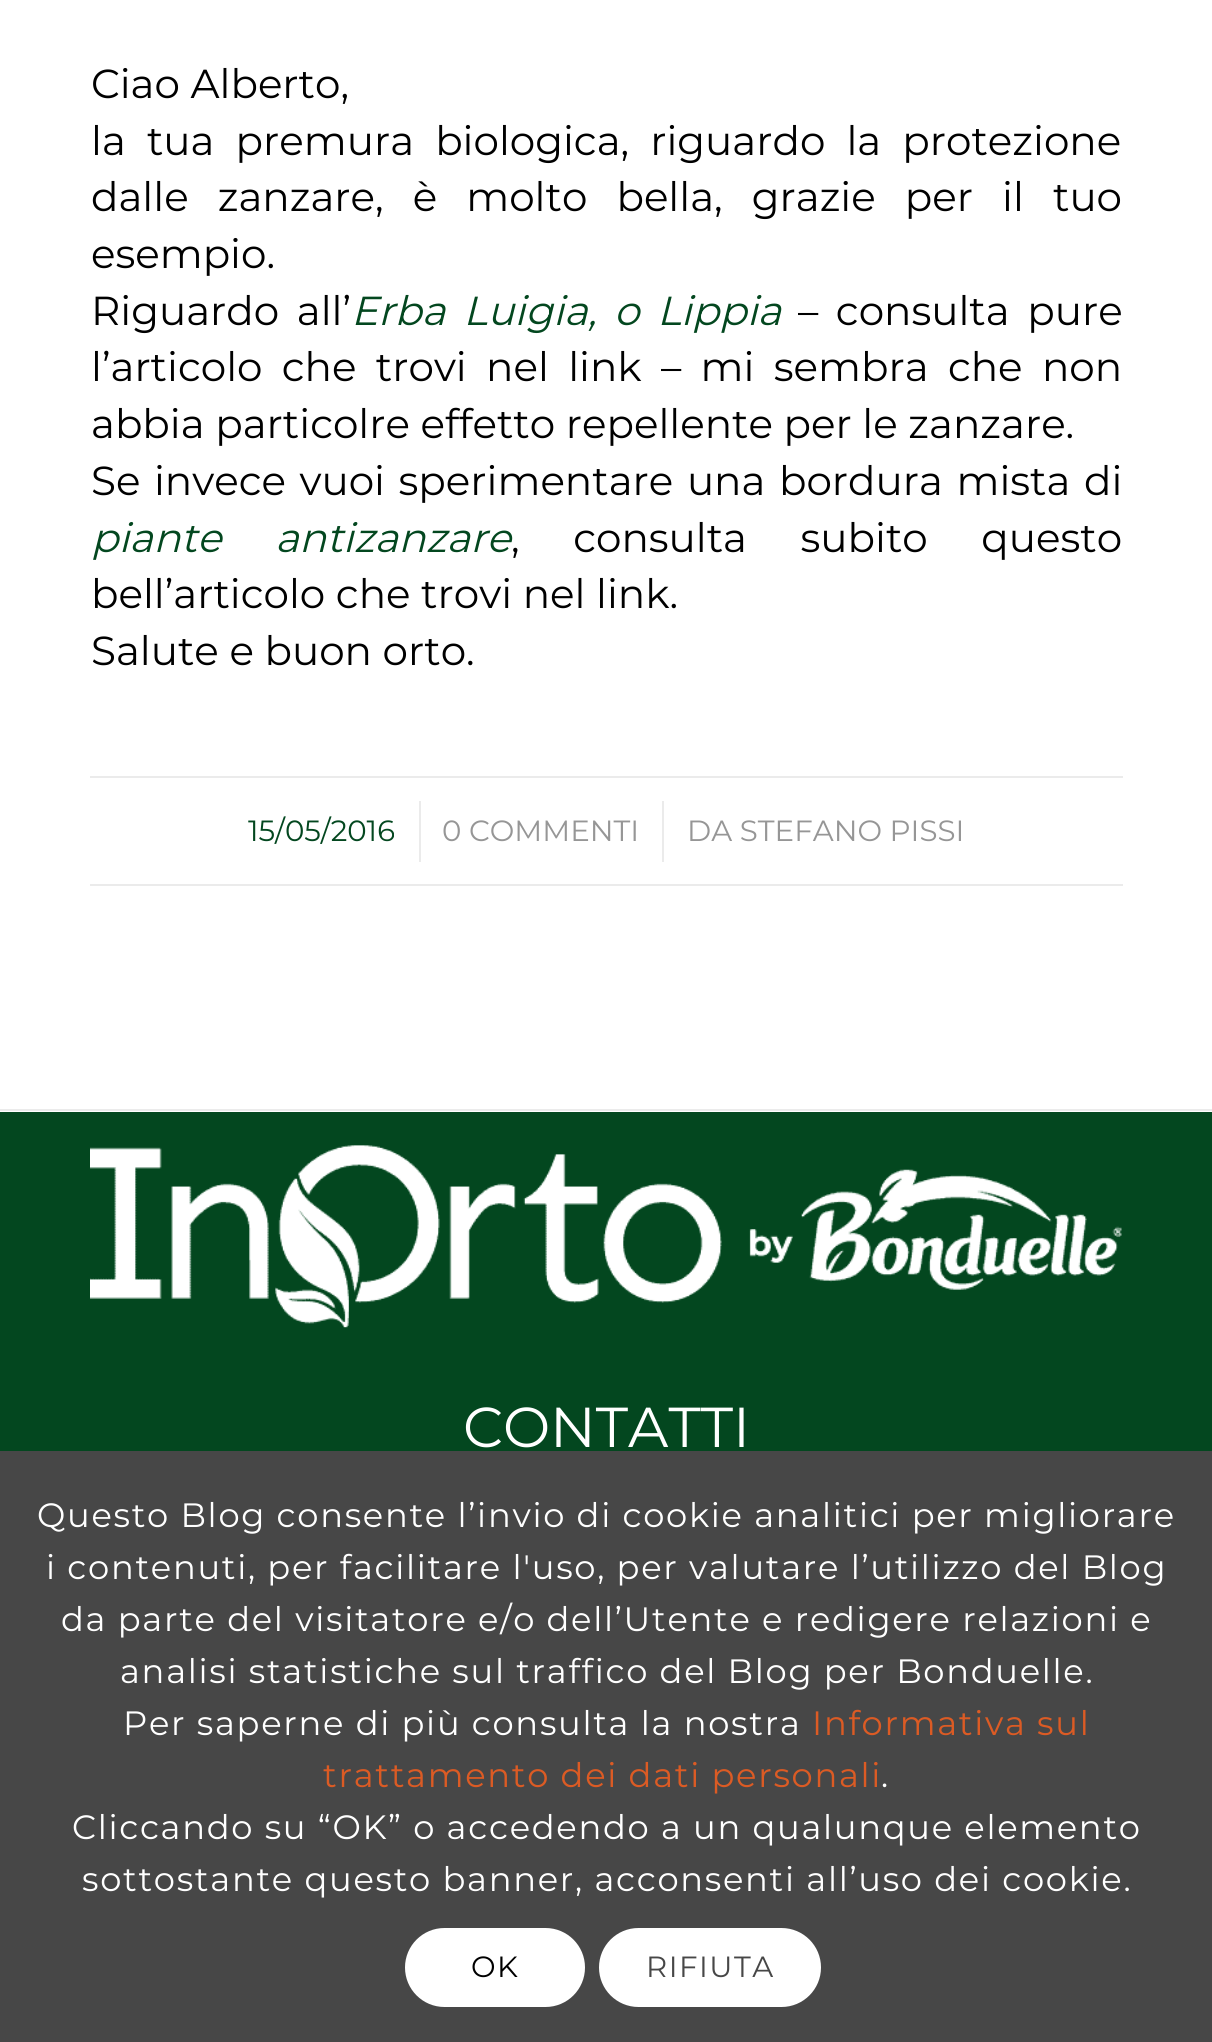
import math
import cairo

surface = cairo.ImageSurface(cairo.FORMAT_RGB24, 1212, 2042)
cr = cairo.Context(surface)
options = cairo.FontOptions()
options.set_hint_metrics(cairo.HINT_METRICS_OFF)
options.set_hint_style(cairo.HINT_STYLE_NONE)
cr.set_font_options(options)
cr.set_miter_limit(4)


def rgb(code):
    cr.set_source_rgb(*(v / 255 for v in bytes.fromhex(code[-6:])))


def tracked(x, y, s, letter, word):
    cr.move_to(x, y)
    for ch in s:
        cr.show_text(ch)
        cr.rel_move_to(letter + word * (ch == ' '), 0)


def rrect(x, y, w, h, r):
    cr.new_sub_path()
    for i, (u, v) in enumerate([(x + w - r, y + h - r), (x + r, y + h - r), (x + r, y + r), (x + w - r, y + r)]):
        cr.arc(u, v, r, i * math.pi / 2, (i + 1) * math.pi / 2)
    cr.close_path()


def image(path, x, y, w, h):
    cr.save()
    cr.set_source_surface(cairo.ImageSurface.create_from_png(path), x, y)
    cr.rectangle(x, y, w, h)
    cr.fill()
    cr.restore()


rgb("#ffffff")
cr.paint()
for x, y, w, h, color in [
    (90, 776, 1033, 2, "#ebebeb"),
    (90, 884, 1033, 2, "#ebebeb"),
    (419, 801, 2, 61, "#ebebeb"),
    (662, 801, 2, 61, "#ebebeb"),
    (0, 1109, 1212, 2, "#ebebeb"),
    (0, 1112, 1212, 339, "#03471f"),
]:
    rgb(color)
    cr.rectangle(x, y, w, h)
    cr.fill()
image("img/1.png", 90, 1145, 1032, 183)
rgb("#474747")
cr.rectangle(0, 1451, 1212, 591)
cr.fill()
rgb("#ffffff")
rrect(405, 1928, 180, 79, 39.5)
cr.fill()
rrect(600, 1929, 220, 77, 38.5)
cr.fill_preserve()
cr.stroke()
cr.select_font_face("Montserrat Thin")
cr.set_font_size(40.5)
rgb("#000000")
cr.move_to(91, 98)
cr.show_text("Ciao Alberto,")
tracked(91, 155, "la tua premura biologica, riguardo la protezione", 0, 10.5)
tracked(91, 211, "dalle zanzare, è molto bella, grazie per il tuo", 0, 18.5)
cr.move_to(91, 268)
cr.show_text("esempio.")
tracked(91, 325, "Riguardo all’", 0, 7)
cr.select_font_face("Montserrat Thin", cairo.FONT_SLANT_ITALIC)
rgb("#03471f")
tracked(351, 325, "Erba Luigia, o Lippia", 0, 7)
cr.select_font_face("Montserrat Thin")
rgb("#000000")
tracked(798, 325, "– consulta pure", 0, 7)
tracked(91, 381, "l’articolo che trovi nel link – mi sembra che non", 0, 8.75)
cr.move_to(91, 438)
cr.show_text("abbia particolre effetto repellente per le zanzare.")
tracked(91, 495, "Se invece vuoi sperimentare una bordura mista di", 0, 3)
cr.select_font_face("Montserrat Thin", cairo.FONT_SLANT_ITALIC)
rgb("#03471f")
tracked(91, 552, "piante antizanzare", 0, 43)
cr.select_font_face("Montserrat Thin")
rgb("#000000")
tracked(511, 552, ", consulta subito questo", 0, 43)
cr.move_to(91, 608)
cr.show_text("bell’articolo che trovi nel link.")
cr.move_to(91, 665)
cr.show_text("Salute e buon orto.")
cr.set_font_size(29.25)
rgb("#03471f")
cr.move_to(248, 841)
cr.show_text("15/05/2016")
rgb("#969696")
cr.move_to(442, 841)
cr.show_text("0 COMMENTI")
cr.move_to(687, 841)
cr.show_text("DA STEFANO PISSI")
cr.set_font_size(56.25)
rgb("#ffffff")
cr.move_to(463, 1447)
cr.show_text("CONTATTI")
cr.set_font_size(33.75)
for x, y, s in [
    (37, 1527, "Questo Blog consente l’invio di cookie analitici per migliorare"),
    (46, 1579, "i contenuti, per facilitare l'uso, per valutare l’utilizzo del Blog"),
    (61, 1631, "da parte del visitatore e/o dell’Utente e redigere relazioni e"),
    (120, 1683, "analisi statistiche sul traffico del Blog per Bonduelle."),
    (123, 1735, "Per saperne di più consulta la nostra"),
]:
    tracked(x, y, s, 1.7, 0)
rgb("#dc5b24")
tracked(812, 1735, "Informativa sul", 1.7, 0)
tracked(323, 1787, "trattamento dei dati personali", 1.7, 0)
rgb("#ffffff")
for x, y, s in [
    (881, 1787, "."),
    (72, 1839, "Cliccando su “OK” o accedendo a un qualunque elemento"),
    (82, 1891, "sottostante questo banner, acconsenti all’uso dei cookie."),
]:
    tracked(x, y, s, 1.7, 0)
cr.set_font_size(29.25)
rgb("#000000")
tracked(471, 1977, "OK", 1.5, 0)
rgb("#474747")
tracked(646, 1977, "RIFIUTA", 1.5, 0)
surface.write_to_png("page.png")
